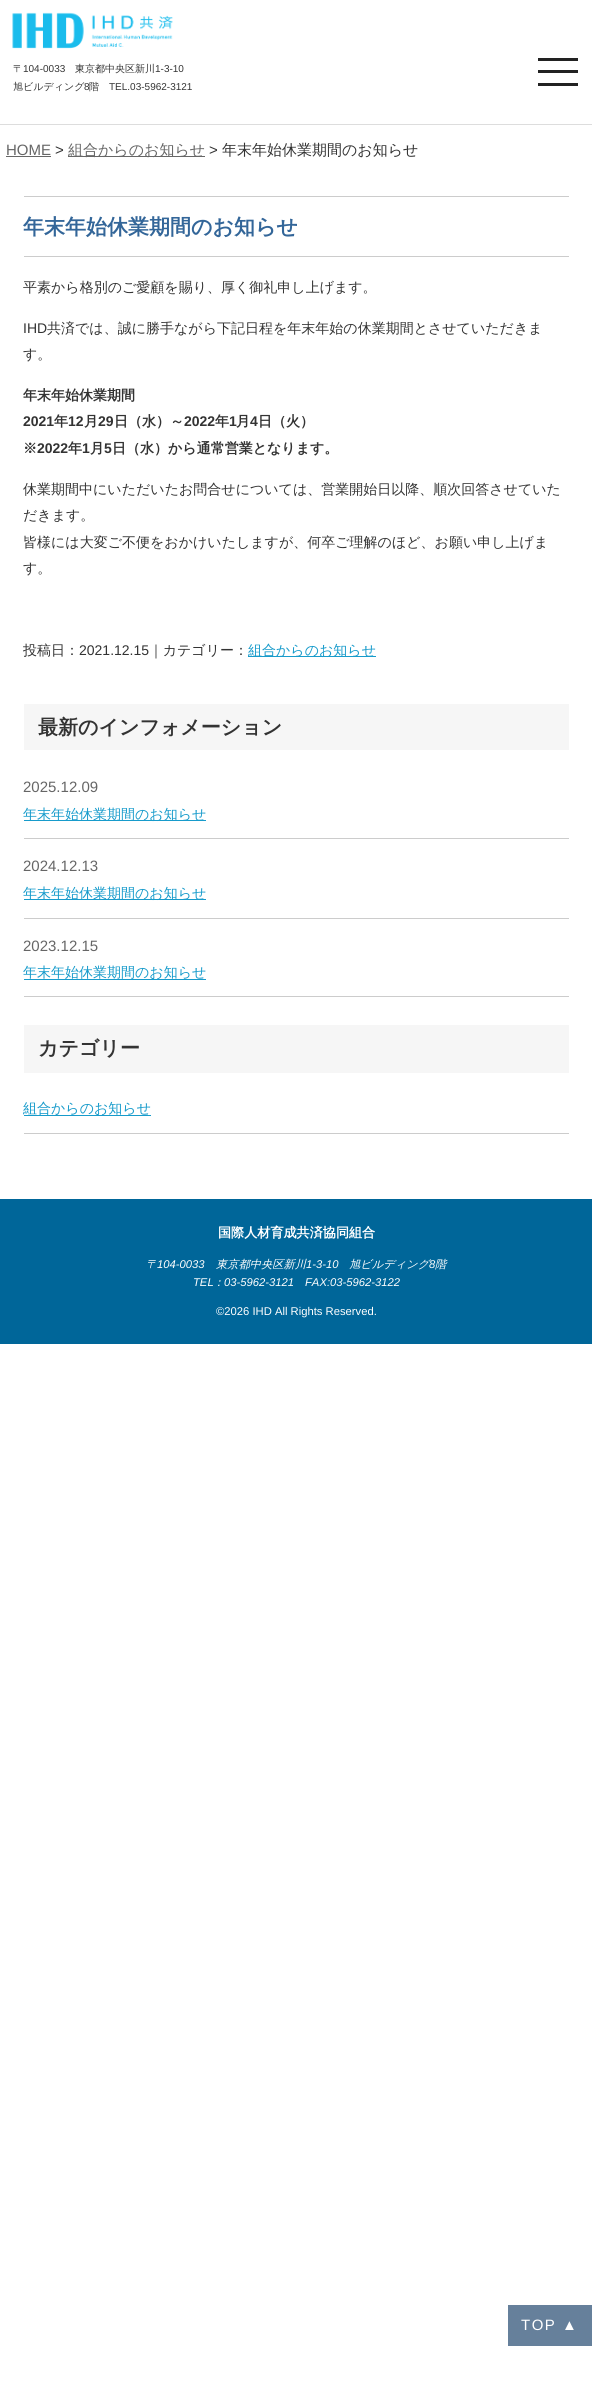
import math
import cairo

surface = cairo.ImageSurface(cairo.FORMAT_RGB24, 592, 2398)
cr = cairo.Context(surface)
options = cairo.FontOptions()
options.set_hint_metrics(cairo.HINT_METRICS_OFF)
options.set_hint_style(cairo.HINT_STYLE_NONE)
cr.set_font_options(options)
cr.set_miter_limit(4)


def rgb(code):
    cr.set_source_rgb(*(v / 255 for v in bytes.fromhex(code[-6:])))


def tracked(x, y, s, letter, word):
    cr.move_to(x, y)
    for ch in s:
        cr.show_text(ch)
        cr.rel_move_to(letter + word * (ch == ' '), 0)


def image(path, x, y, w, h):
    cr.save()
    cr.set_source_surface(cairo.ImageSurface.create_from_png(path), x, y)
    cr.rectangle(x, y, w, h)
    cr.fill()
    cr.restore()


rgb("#ffffff")
cr.paint()
rgb("#dddddd")
cr.rectangle(0, 124, 592, 1)
cr.fill()
image("img/1.png", 12, 12, 161, 37)
for x, y, w, h, color in [
    (538, 70, 40, 3, "#222222"),
    (538, 58, 40, 3, "#222222"),
    (538, 83, 40, 3, "#222222"),
    (6, 156, 45, 1, "#666666"),
    (68, 156, 137, 1, "#666666"),
    (24, 196, 545, 1, "#cccccc"),
    (24, 256, 545, 1, "#cccccc"),
    (248, 656, 128, 1, "#179bcb"),
    (24, 704, 545, 46, "#f6f6f6"),
    (24, 838, 545, 1, "#cccccc"),
    (24, 820, 182, 1, "#179bcb"),
    (24, 918, 545, 1, "#cccccc"),
    (24, 899, 182, 1, "#179bcb"),
    (24, 996, 545, 1, "#cccccc"),
    (24, 979, 182, 1, "#179bcb"),
    (24, 1025, 545, 48, "#f6f6f6"),
    (24, 1133, 545, 1, "#cccccc"),
    (24, 1115, 127, 1, "#179bcb"),
    (0, 1199, 592, 145, "#006699"),
    (508, 2305, 84, 41, "#66809b"),
]:
    rgb(color)
    cr.rectangle(x, y, w, h)
    cr.fill()
cr.select_font_face("WenQuanYi Zen Hei Medium")
cr.set_font_size(10)
rgb("#333333")
cr.move_to(13, 72)
cr.show_text("〒")
cr.select_font_face("Liberation Sans")
cr.move_to(23, 72)
cr.show_text("104-0033")
cr.select_font_face("WenQuanYi Zen Hei Medium")
cr.move_to(75, 72)
cr.show_text("東京都中央区新川")
cr.select_font_face("Liberation Sans")
cr.move_to(155, 72)
cr.show_text("1-3-10")
cr.select_font_face("WenQuanYi Zen Hei Medium")
cr.move_to(13, 90)
cr.show_text("旭ビルディング")
cr.select_font_face("Liberation Sans")
cr.move_to(84, 90)
cr.show_text("8")
cr.select_font_face("WenQuanYi Zen Hei Medium")
cr.move_to(89, 90)
cr.show_text("階")
cr.select_font_face("Liberation Sans")
cr.move_to(109, 90)
cr.show_text("TEL.03-5962-3121")
cr.set_font_size(15)
rgb("#666666")
cr.move_to(6, 155)
cr.show_text("HOME")
rgb("#333333")
cr.move_to(55, 155)
cr.show_text(">")
cr.select_font_face("WenQuanYi Zen Hei Medium")
rgb("#666666")
cr.move_to(68, 155)
cr.show_text("組合からのお知らせ")
cr.select_font_face("Liberation Sans")
rgb("#333333")
cr.move_to(209, 155)
cr.show_text(">")
cr.select_font_face("WenQuanYi Zen Hei Medium")
cr.move_to(222, 155)
cr.show_text("年末年始休業期間のお知らせ")
cr.select_font_face("WenQuanYi Zen Hei", cairo.FONT_SLANT_NORMAL, cairo.FONT_WEIGHT_BOLD)
cr.set_font_size(21)
rgb("#336699")
cr.move_to(23, 234)
cr.show_text("年末年始休業期間のお知らせ")
cr.select_font_face("WenQuanYi Zen Hei Medium")
cr.set_font_size(14)
rgb("#333333")
cr.move_to(23, 292)
cr.show_text("平素から格別のご愛顧を賜り、厚く御礼申し上げます。")
cr.select_font_face("Liberation Sans")
cr.move_to(23, 333)
cr.show_text("IHD")
cr.select_font_face("WenQuanYi Zen Hei Medium")
cr.move_to(47, 333)
cr.show_text("共済では、誠に勝手ながら下記日程を年末年始の休業期間とさせていただきま")
cr.move_to(23, 359)
cr.show_text("す。")
cr.select_font_face("WenQuanYi Zen Hei", cairo.FONT_SLANT_NORMAL, cairo.FONT_WEIGHT_BOLD)
cr.move_to(23, 400)
cr.show_text("年末年始休業期間")
cr.select_font_face("Liberation Sans", cairo.FONT_SLANT_NORMAL, cairo.FONT_WEIGHT_BOLD)
cr.move_to(23, 426)
cr.show_text("2021")
cr.select_font_face("WenQuanYi Zen Hei", cairo.FONT_SLANT_NORMAL, cairo.FONT_WEIGHT_BOLD)
cr.move_to(54, 426)
cr.show_text("年")
cr.select_font_face("Liberation Sans", cairo.FONT_SLANT_NORMAL, cairo.FONT_WEIGHT_BOLD)
cr.move_to(68, 426)
cr.show_text("12")
cr.select_font_face("WenQuanYi Zen Hei", cairo.FONT_SLANT_NORMAL, cairo.FONT_WEIGHT_BOLD)
cr.move_to(84, 426)
cr.show_text("月")
cr.select_font_face("Liberation Sans", cairo.FONT_SLANT_NORMAL, cairo.FONT_WEIGHT_BOLD)
cr.move_to(98, 426)
cr.show_text("29")
cr.select_font_face("WenQuanYi Zen Hei", cairo.FONT_SLANT_NORMAL, cairo.FONT_WEIGHT_BOLD)
cr.move_to(114, 426)
cr.show_text("日（水）～")
cr.select_font_face("Liberation Sans", cairo.FONT_SLANT_NORMAL, cairo.FONT_WEIGHT_BOLD)
cr.move_to(184, 426)
cr.show_text("2022")
cr.select_font_face("WenQuanYi Zen Hei", cairo.FONT_SLANT_NORMAL, cairo.FONT_WEIGHT_BOLD)
cr.move_to(215, 426)
cr.show_text("年")
cr.select_font_face("Liberation Sans", cairo.FONT_SLANT_NORMAL, cairo.FONT_WEIGHT_BOLD)
cr.move_to(229, 426)
cr.show_text("1")
cr.select_font_face("WenQuanYi Zen Hei", cairo.FONT_SLANT_NORMAL, cairo.FONT_WEIGHT_BOLD)
cr.move_to(236, 426)
cr.show_text("月")
cr.select_font_face("Liberation Sans", cairo.FONT_SLANT_NORMAL, cairo.FONT_WEIGHT_BOLD)
cr.move_to(250, 426)
cr.show_text("4")
cr.select_font_face("WenQuanYi Zen Hei", cairo.FONT_SLANT_NORMAL, cairo.FONT_WEIGHT_BOLD)
cr.move_to(258, 426)
cr.show_text("日（火）")
cr.move_to(23, 453)
cr.show_text("※")
cr.select_font_face("Liberation Sans", cairo.FONT_SLANT_NORMAL, cairo.FONT_WEIGHT_BOLD)
cr.move_to(37, 453)
cr.show_text("2022")
cr.select_font_face("WenQuanYi Zen Hei", cairo.FONT_SLANT_NORMAL, cairo.FONT_WEIGHT_BOLD)
cr.move_to(68, 453)
cr.show_text("年")
cr.select_font_face("Liberation Sans", cairo.FONT_SLANT_NORMAL, cairo.FONT_WEIGHT_BOLD)
cr.move_to(82, 453)
cr.show_text("1")
cr.select_font_face("WenQuanYi Zen Hei", cairo.FONT_SLANT_NORMAL, cairo.FONT_WEIGHT_BOLD)
cr.move_to(90, 453)
cr.show_text("月")
cr.select_font_face("Liberation Sans", cairo.FONT_SLANT_NORMAL, cairo.FONT_WEIGHT_BOLD)
cr.move_to(104, 453)
cr.show_text("5")
cr.select_font_face("WenQuanYi Zen Hei", cairo.FONT_SLANT_NORMAL, cairo.FONT_WEIGHT_BOLD)
cr.move_to(112, 453)
cr.show_text("日（水）から通常営業となります。")
cr.select_font_face("WenQuanYi Zen Hei Medium")
for x, y, s in [
    (23, 494, "休業期間中にいただいたお問合せについては、営業開始日以降、順次回答させていた"),
    (23, 520, "だきます。"),
    (23, 547, "皆様には大変ご不便をおかけいたしますが、何卒ご理解のほど、お願い申し上げま"),
    (23, 573, "す。"),
    (23, 655, "投稿日："),
]:
    cr.move_to(x, y)
    cr.show_text(s)
cr.select_font_face("Liberation Sans")
cr.move_to(79, 655)
cr.show_text("2021.12.15")
cr.select_font_face("WenQuanYi Zen Hei Medium")
cr.move_to(149, 655)
cr.show_text("｜カテゴリー：")
rgb("#179bcb")
cr.move_to(248, 655)
cr.show_text("組合からのお知らせ")
cr.select_font_face("WenQuanYi Zen Hei", cairo.FONT_SLANT_NORMAL, cairo.FONT_WEIGHT_BOLD)
cr.set_font_size(20)
rgb("#333333")
cr.move_to(38, 734)
cr.show_text("最新のインフォメーション")
cr.select_font_face("Liberation Sans")
cr.set_font_size(15)
rgb("#666666")
cr.move_to(23, 792)
cr.show_text("2025.12.09")
cr.select_font_face("WenQuanYi Zen Hei Medium")
cr.set_font_size(14)
rgb("#179bcb")
cr.move_to(23, 819)
cr.show_text("年末年始休業期間のお知らせ")
cr.select_font_face("Liberation Sans")
cr.set_font_size(15)
rgb("#666666")
cr.move_to(23, 871)
cr.show_text("2024.12.13")
cr.select_font_face("WenQuanYi Zen Hei Medium")
cr.set_font_size(14)
rgb("#179bcb")
cr.move_to(23, 898)
cr.show_text("年末年始休業期間のお知らせ")
cr.select_font_face("Liberation Sans")
cr.set_font_size(15)
rgb("#666666")
cr.move_to(23, 951)
cr.show_text("2023.12.15")
cr.select_font_face("WenQuanYi Zen Hei Medium")
cr.set_font_size(14)
rgb("#179bcb")
cr.move_to(23, 977)
cr.show_text("年末年始休業期間のお知らせ")
cr.select_font_face("WenQuanYi Zen Hei", cairo.FONT_SLANT_NORMAL, cairo.FONT_WEIGHT_BOLD)
cr.set_font_size(20)
rgb("#333333")
cr.move_to(38, 1055)
cr.show_text("カテゴリー")
cr.select_font_face("WenQuanYi Zen Hei Medium")
cr.set_font_size(14)
rgb("#179bcb")
cr.move_to(23, 1113)
cr.show_text("組合からのお知らせ")
cr.select_font_face("WenQuanYi Zen Hei", cairo.FONT_SLANT_NORMAL, cairo.FONT_WEIGHT_BOLD)
cr.set_font_size(13.1)
rgb("#ffffff")
cr.move_to(218, 1237)
cr.show_text("国際人材育成共済協同組合")
cr.select_font_face("WenQuanYi Zen Hei Medium", cairo.FONT_SLANT_ITALIC)
cr.set_font_size(11.25)
cr.move_to(146, 1268)
cr.show_text("〒")
cr.select_font_face("Liberation Sans", cairo.FONT_SLANT_ITALIC)
cr.move_to(157, 1268)
cr.show_text("104-0033")
cr.select_font_face("WenQuanYi Zen Hei Medium", cairo.FONT_SLANT_ITALIC)
cr.move_to(216, 1268)
cr.show_text("東京都中央区新川")
cr.select_font_face("Liberation Sans", cairo.FONT_SLANT_ITALIC)
cr.move_to(306, 1268)
cr.show_text("1-3-10")
cr.select_font_face("WenQuanYi Zen Hei Medium", cairo.FONT_SLANT_ITALIC)
cr.move_to(349, 1268)
cr.show_text("旭ビルディング")
cr.select_font_face("Liberation Sans", cairo.FONT_SLANT_ITALIC)
cr.move_to(429, 1268)
cr.show_text("8")
cr.select_font_face("WenQuanYi Zen Hei Medium", cairo.FONT_SLANT_ITALIC)
cr.move_to(435, 1268)
cr.show_text("階")
cr.select_font_face("Liberation Sans", cairo.FONT_SLANT_ITALIC)
cr.move_to(193, 1286)
cr.show_text("TEL")
cr.select_font_face("WenQuanYi Zen Hei Medium", cairo.FONT_SLANT_ITALIC)
cr.move_to(213, 1286)
cr.show_text("：")
cr.select_font_face("Liberation Sans", cairo.FONT_SLANT_ITALIC)
cr.move_to(224, 1286)
cr.show_text("03-5962-3121")
cr.move_to(305, 1286)
cr.show_text("FAX:03-5962-3122")
cr.select_font_face("Liberation Sans")
cr.move_to(216, 1315)
cr.show_text("©2026 IHD All Rights Reserved.")
cr.set_font_size(15)
tracked(521, 2330, "TOP ▲", 1.5, 0)
surface.write_to_png("page.png")
